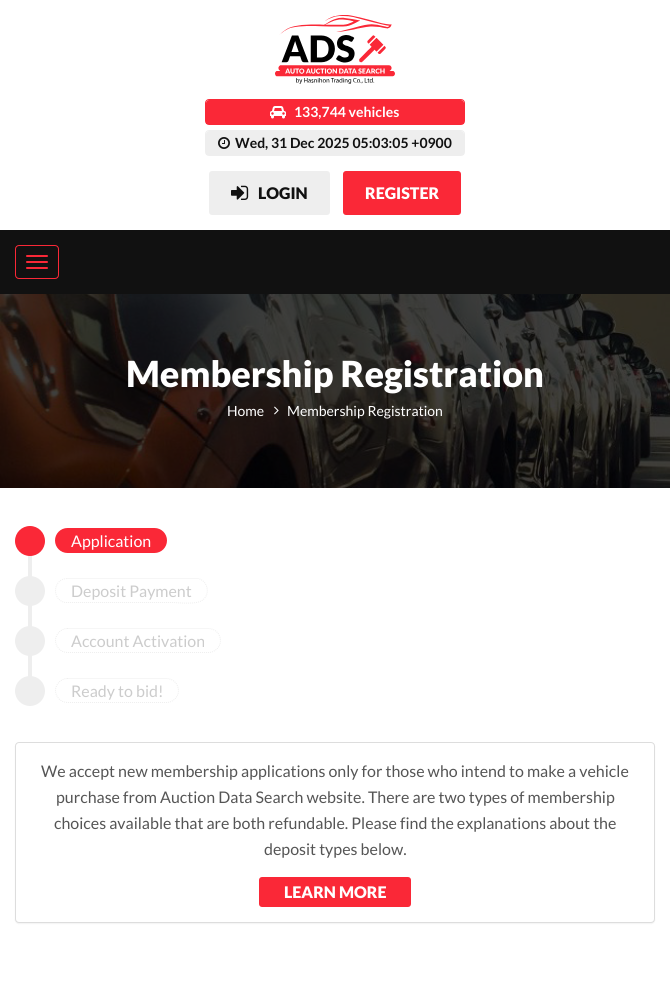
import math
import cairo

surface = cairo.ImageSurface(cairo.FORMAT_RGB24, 670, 988)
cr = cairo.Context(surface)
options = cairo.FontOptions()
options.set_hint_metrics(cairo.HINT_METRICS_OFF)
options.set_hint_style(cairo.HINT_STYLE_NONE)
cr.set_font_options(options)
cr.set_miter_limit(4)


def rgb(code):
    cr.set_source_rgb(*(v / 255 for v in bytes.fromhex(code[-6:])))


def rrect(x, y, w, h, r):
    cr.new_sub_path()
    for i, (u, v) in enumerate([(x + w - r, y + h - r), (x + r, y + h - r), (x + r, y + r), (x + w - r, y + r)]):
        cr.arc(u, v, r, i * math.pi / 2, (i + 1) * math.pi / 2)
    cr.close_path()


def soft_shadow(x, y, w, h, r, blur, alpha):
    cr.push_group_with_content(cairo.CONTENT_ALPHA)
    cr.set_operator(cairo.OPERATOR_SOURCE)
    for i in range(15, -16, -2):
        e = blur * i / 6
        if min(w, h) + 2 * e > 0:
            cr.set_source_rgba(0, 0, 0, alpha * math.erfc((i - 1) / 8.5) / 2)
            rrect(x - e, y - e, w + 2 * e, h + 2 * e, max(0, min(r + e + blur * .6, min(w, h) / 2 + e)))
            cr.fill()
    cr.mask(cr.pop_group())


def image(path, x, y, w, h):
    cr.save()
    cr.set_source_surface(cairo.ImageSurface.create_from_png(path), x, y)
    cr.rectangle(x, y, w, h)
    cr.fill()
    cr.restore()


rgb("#ffffff")
cr.paint()
image("img/1.png", 275, 15, 120, 69)
rrect(205.5, 99.5, 259, 25, 3.5)
rgb("#fa2837")
cr.set_line_width(1)
cr.stroke()
cr.new_path()
cr.move_to(209, 100)
cr.line_to(461, 100)
cr.curve_to(462.5, 100, 464, 101.5, 464, 103)
cr.line_to(464, 124)
cr.line_to(206, 124)
cr.line_to(206, 103)
cr.curve_to(206, 101.5, 207.5, 100, 209, 100)
cr.close_path()
cr.fill()
image("img/2.png", 270, 106, 16, 13)
rrect(205.5, 130.5, 259, 25, 3.5)
rgb("#eeeeee")
cr.stroke()
cr.new_path()
cr.move_to(209, 131)
cr.line_to(461, 131)
cr.curve_to(462.5, 131, 464, 132.5, 464, 134)
cr.line_to(464, 155)
cr.line_to(206, 155)
cr.line_to(206, 134)
cr.curve_to(206, 132.5, 207.5, 131, 209, 131)
cr.close_path()
cr.fill()
image("img/3.png", 218, 137, 12, 12)
rrect(209, 171, 121, 44, 3)
cr.fill()
image("img/4.png", 231, 185, 18, 15)
rgb("#fa2837")
rrect(343, 171, 118, 44, 3)
cr.fill()
rgb("#111111")
cr.rectangle(0, 230, 670, 64)
cr.fill()
rrect(15.5, 245.5, 43, 33, 3.5)
rgb("#fa2837")
cr.stroke()
rrect(26, 255, 22, 2, 1)
cr.fill()
rrect(26, 261, 22, 2, 1)
cr.fill()
rrect(26, 267, 22, 2, 1)
cr.fill()
image("img/5.png", 0, 294, 670, 194)
image("img/6.png", 274, 406, 5, 9)
rgb("#eeeeee")
cr.rectangle(28, 555, 4, 122)
cr.fill()
rgb("#fa2837")
cr.arc(30, 541, 15, 0, 2 * math.pi)
cr.fill()
rrect(55, 528, 112, 25, 12.5)
cr.fill()
rgb("#eeeeee")
cr.arc(30, 591, 15, 0, 2 * math.pi)
cr.fill()
cr.new_path()
cr.move_to(67.5, 578.5)
cr.line_to(198, 578.5)
cr.curve_to(209, 581, 211, 597, 200, 601.5)
cr.curve_to(193.5, 604.5, 174.5, 602.5, 174, 602.5)
cr.line_to(65, 602.5)
cr.curve_to(51, 599.5, 53, 578.5, 67.5, 578.5)
cr.close_path()
cr.set_dash([1, 1])
cr.stroke()
cr.arc(30, 641, 15, 0, 2 * math.pi)
cr.fill()
cr.new_path()
cr.move_to(67.5, 628.5)
cr.line_to(208.5, 628.5)
cr.curve_to(215, 628.5, 220.5, 634, 220.5, 640.5)
cr.curve_to(220.5, 647, 215, 652.5, 208.5, 652.5)
cr.line_to(67.5, 652.5)
cr.curve_to(61, 652.5, 55.5, 647, 55.5, 640.5)
cr.curve_to(55.5, 634, 61, 628.5, 67.5, 628.5)
cr.close_path()
cr.stroke()
cr.arc(30, 691, 15, 0, 2 * math.pi)
cr.fill()
cr.new_path()
cr.move_to(67.5, 678.5)
cr.line_to(166.5, 678.5)
cr.curve_to(173, 678.5, 178.5, 684, 178.5, 690.5)
cr.curve_to(178.5, 697, 173, 702.5, 166.5, 702.5)
cr.line_to(67.5, 702.5)
cr.curve_to(61, 702.5, 55.5, 697, 55.5, 690.5)
cr.curve_to(55.5, 684, 61, 678.5, 67.5, 678.5)
cr.close_path()
cr.stroke()
rgb("#000000")
soft_shadow(15, 743, 640, 181, 4, 0.5, 0.05)
rgb("#ffffff")
rrect(15.5, 742.5, 639, 180, 3.5)
cr.fill_preserve()
rgb("#dddddd")
cr.set_dash([])
cr.stroke()
rgb("#fa2837")
rrect(259, 877, 152, 30, 3)
cr.fill()
cr.select_font_face("Lato", cairo.FONT_SLANT_NORMAL, cairo.FONT_WEIGHT_BOLD)
cr.set_font_size(14)
rgb("#ffffff")
cr.move_to(294, 117)
cr.show_text("133,744 vehicles")
rgb("#111111")
cr.move_to(235, 148)
cr.show_text("Wed, 31 Dec 2025 05:03:05 +0900")
cr.select_font_face("Lato Black")
cr.set_font_size(16)
cr.move_to(258, 199)
cr.show_text("LOGIN")
rgb("#ffffff")
cr.move_to(365, 199)
cr.show_text("REGISTER")
cr.set_font_size(36)
cr.move_to(126, 387)
cr.show_text("Membership Registration")
cr.select_font_face("Lato")
cr.set_font_size(14)
cr.move_to(227, 416)
cr.show_text("Home")
cr.move_to(287, 416)
cr.show_text("Membership Registration")
cr.set_font_size(16)
cr.move_to(71, 547)
cr.show_text("Application")
rgb("#cccccc")
for x, y, s in [
    (71, 597, "Deposit Payment"),
    (71, 647, "Account Activation"),
    (71, 697, "Ready to bid!"),
]:
    cr.move_to(x, y)
    cr.show_text(s)
rgb("#555555")
for x, y, s in [
    (41, 777, "We accept new membership applications only for those who intend to make a vehicle"),
    (56, 803, "purchase from Auction Data Search website. There are two types of membership"),
    (54, 829, "choices available that are both refundable. Please find the explanations about the"),
    (264, 855, "deposit types below."),
]:
    cr.move_to(x, y)
    cr.show_text(s)
cr.select_font_face("Lato Black")
rgb("#ffffff")
cr.move_to(284, 898)
cr.show_text("LEARN MORE")
surface.write_to_png("page.png")
